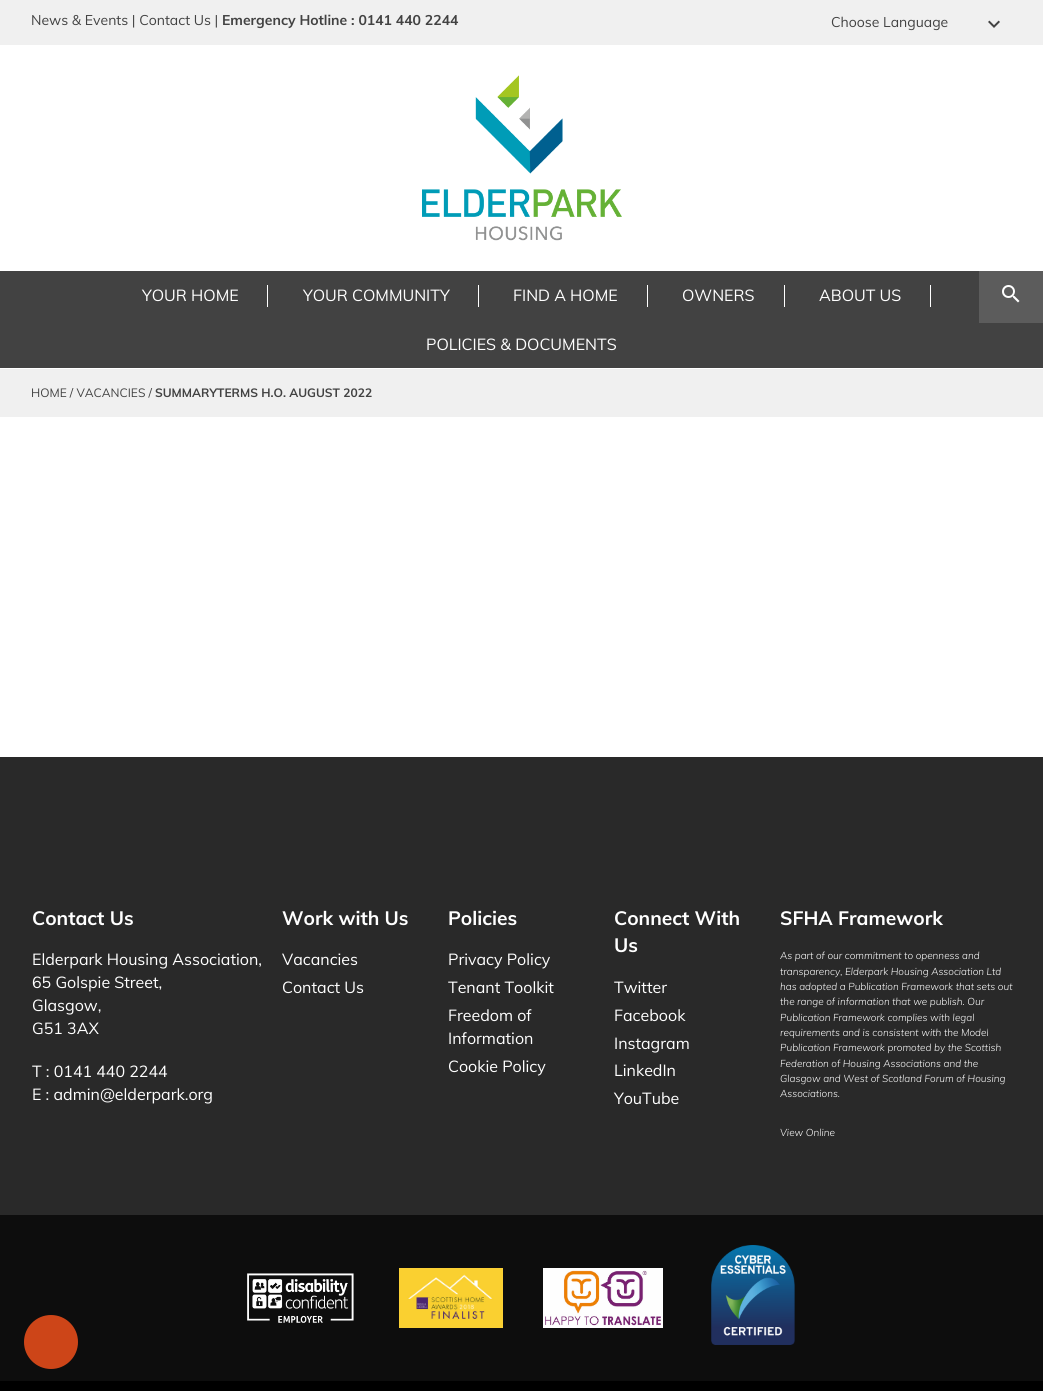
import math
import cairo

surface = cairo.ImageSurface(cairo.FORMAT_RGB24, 1043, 1391)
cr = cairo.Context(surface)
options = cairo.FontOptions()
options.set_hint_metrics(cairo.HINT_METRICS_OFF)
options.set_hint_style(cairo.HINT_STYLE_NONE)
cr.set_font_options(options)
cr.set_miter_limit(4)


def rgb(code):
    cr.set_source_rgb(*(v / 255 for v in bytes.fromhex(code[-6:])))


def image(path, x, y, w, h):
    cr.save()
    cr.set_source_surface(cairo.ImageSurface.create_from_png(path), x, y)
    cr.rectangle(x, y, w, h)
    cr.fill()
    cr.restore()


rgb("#ffffff")
cr.paint()
rgb("#f0f0f0")
cr.rectangle(0, 0, 1043, 45)
cr.fill()
image("img/1.png", 988, 20, 12, 8)
image("img/2.png", 422, 75, 200, 166)
for x, y, w, h, color in [
    (0, 271, 1043, 97, "#424242"),
    (267, 285, 1, 22, "#ffffff"),
    (478, 285, 1, 22, "#ffffff"),
    (647, 285, 1, 22, "#ffffff"),
    (784, 285, 1, 22, "#ffffff"),
    (930, 285, 1, 22, "#ffffff"),
    (979, 271, 64, 52, "#5c5c5c"),
]:
    rgb(color)
    cr.rectangle(x, y, w, h)
    cr.fill()
image("img/3.png", 1002, 285, 18, 18)
for x, y, w, h, color in [
    (0, 369, 1043, 48, "#f0f0f0"),
    (0, 757, 1043, 458, "#292929"),
    (0, 1215, 1043, 166, "#0d0d0d"),
]:
    rgb(color)
    cr.rectangle(x, y, w, h)
    cr.fill()
image("img/4.png", 247, 1273, 107, 50)
image("img/5.png", 399, 1268, 104, 60)
image("img/6.png", 543, 1268, 120, 60)
image("img/7.png", 711, 1245, 84, 100)
rgb("#000000")
cr.rectangle(0, 1381, 1043, 10)
cr.fill()
rgb("#cd4518")
cr.arc(51, 1342, 27, 0, 2 * math.pi)
cr.fill()
cr.select_font_face("Muli")
cr.set_font_size(14)
rgb("#424242")
cr.move_to(31, 25)
cr.show_text("News & Events | Contact Us |")
cr.select_font_face("Muli", cairo.FONT_SLANT_NORMAL, cairo.FONT_WEIGHT_BOLD)
cr.move_to(222, 25)
cr.show_text("Emergency Hotline : 0141 440 2244")
cr.select_font_face("Muli")
cr.move_to(831, 27)
cr.show_text("Choose Language")
cr.set_font_size(16)
rgb("#ffffff")
for x, y, s in [
    (142, 301, "YOUR HOME"),
    (303, 301, "YOUR COMMUNITY"),
    (513, 301, "FIND A HOME"),
    (682, 301, "OWNERS"),
    (819, 301, "ABOUT US"),
    (426, 350, "POLICIES & DOCUMENTS"),
]:
    cr.move_to(x, y)
    cr.show_text(s)
cr.set_font_size(12)
rgb("#424242")
cr.move_to(31, 397)
cr.show_text("HOME / VACANCIES /")
cr.select_font_face("Muli", cairo.FONT_SLANT_NORMAL, cairo.FONT_WEIGHT_BOLD)
cr.move_to(155, 397)
cr.show_text("SUMMARYTERMS H.O. AUGUST 2022")
cr.set_font_size(19.25)
rgb("#ffffff")
cr.move_to(32, 925)
cr.show_text("Contact Us")
cr.select_font_face("Muli")
cr.set_font_size(16)
for x, y, s in [
    (32, 965, "Elderpark Housing Association,"),
    (32, 988, "65 Golspie Street,"),
    (32, 1011, "Glasgow,"),
    (32, 1034, "G51 3AX"),
    (32, 1077, "T : 0141 440 2244"),
    (32, 1100, "E : admin@elderpark.org"),
]:
    cr.move_to(x, y)
    cr.show_text(s)
cr.select_font_face("Muli", cairo.FONT_SLANT_NORMAL, cairo.FONT_WEIGHT_BOLD)
cr.set_font_size(19.25)
cr.move_to(282, 925)
cr.show_text("Work with Us")
cr.select_font_face("Muli")
cr.set_font_size(16)
cr.move_to(282, 965)
cr.show_text("Vacancies")
cr.move_to(282, 993)
cr.show_text("Contact Us")
cr.select_font_face("Muli", cairo.FONT_SLANT_NORMAL, cairo.FONT_WEIGHT_BOLD)
cr.set_font_size(19.25)
cr.move_to(448, 925)
cr.show_text("Policies")
cr.select_font_face("Muli")
cr.set_font_size(16)
for x, y, s in [
    (448, 965, "Privacy Policy"),
    (448, 993, "Tenant Toolkit"),
    (448, 1021, "Freedom of"),
    (448, 1044, "Information"),
    (448, 1072, "Cookie Policy"),
]:
    cr.move_to(x, y)
    cr.show_text(s)
cr.select_font_face("Muli", cairo.FONT_SLANT_NORMAL, cairo.FONT_WEIGHT_BOLD)
cr.set_font_size(19.25)
cr.move_to(614, 925)
cr.show_text("Connect With")
cr.move_to(614, 952)
cr.show_text("Us")
cr.select_font_face("Muli")
cr.set_font_size(16)
for x, y, s in [
    (614, 993, "Twitter"),
    (614, 1021, "Facebook"),
    (614, 1049, "Instagram"),
    (614, 1076, "LinkedIn"),
    (614, 1104, "YouTube"),
]:
    cr.move_to(x, y)
    cr.show_text(s)
cr.select_font_face("Muli", cairo.FONT_SLANT_NORMAL, cairo.FONT_WEIGHT_BOLD)
cr.set_font_size(19.25)
cr.move_to(780, 925)
cr.show_text("SFHA Framework")
cr.select_font_face("Muli Light", cairo.FONT_SLANT_ITALIC)
cr.set_font_size(10)
for x, y, s in [
    (780, 959, "As part of our commitment to openness and"),
    (780, 975, "transparency, Elderpark Housing Association Ltd"),
    (780, 990, "has adopted a Publication Framework that sets out"),
    (780, 1005, "the range of information that we publish. Our"),
    (780, 1021, "Publication Framework complies with legal"),
    (780, 1036, "requirements and is consistent with the Model"),
    (780, 1051, "Publication Framework promoted by the Scottish"),
    (780, 1067, "Federation of Housing Associations and the"),
    (780, 1082, "Glasgow and West of Scotland Forum of Housing"),
    (780, 1097, "Associations."),
    (780, 1136, "View Online"),
]:
    cr.move_to(x, y)
    cr.show_text(s)
surface.write_to_png("page.png")
